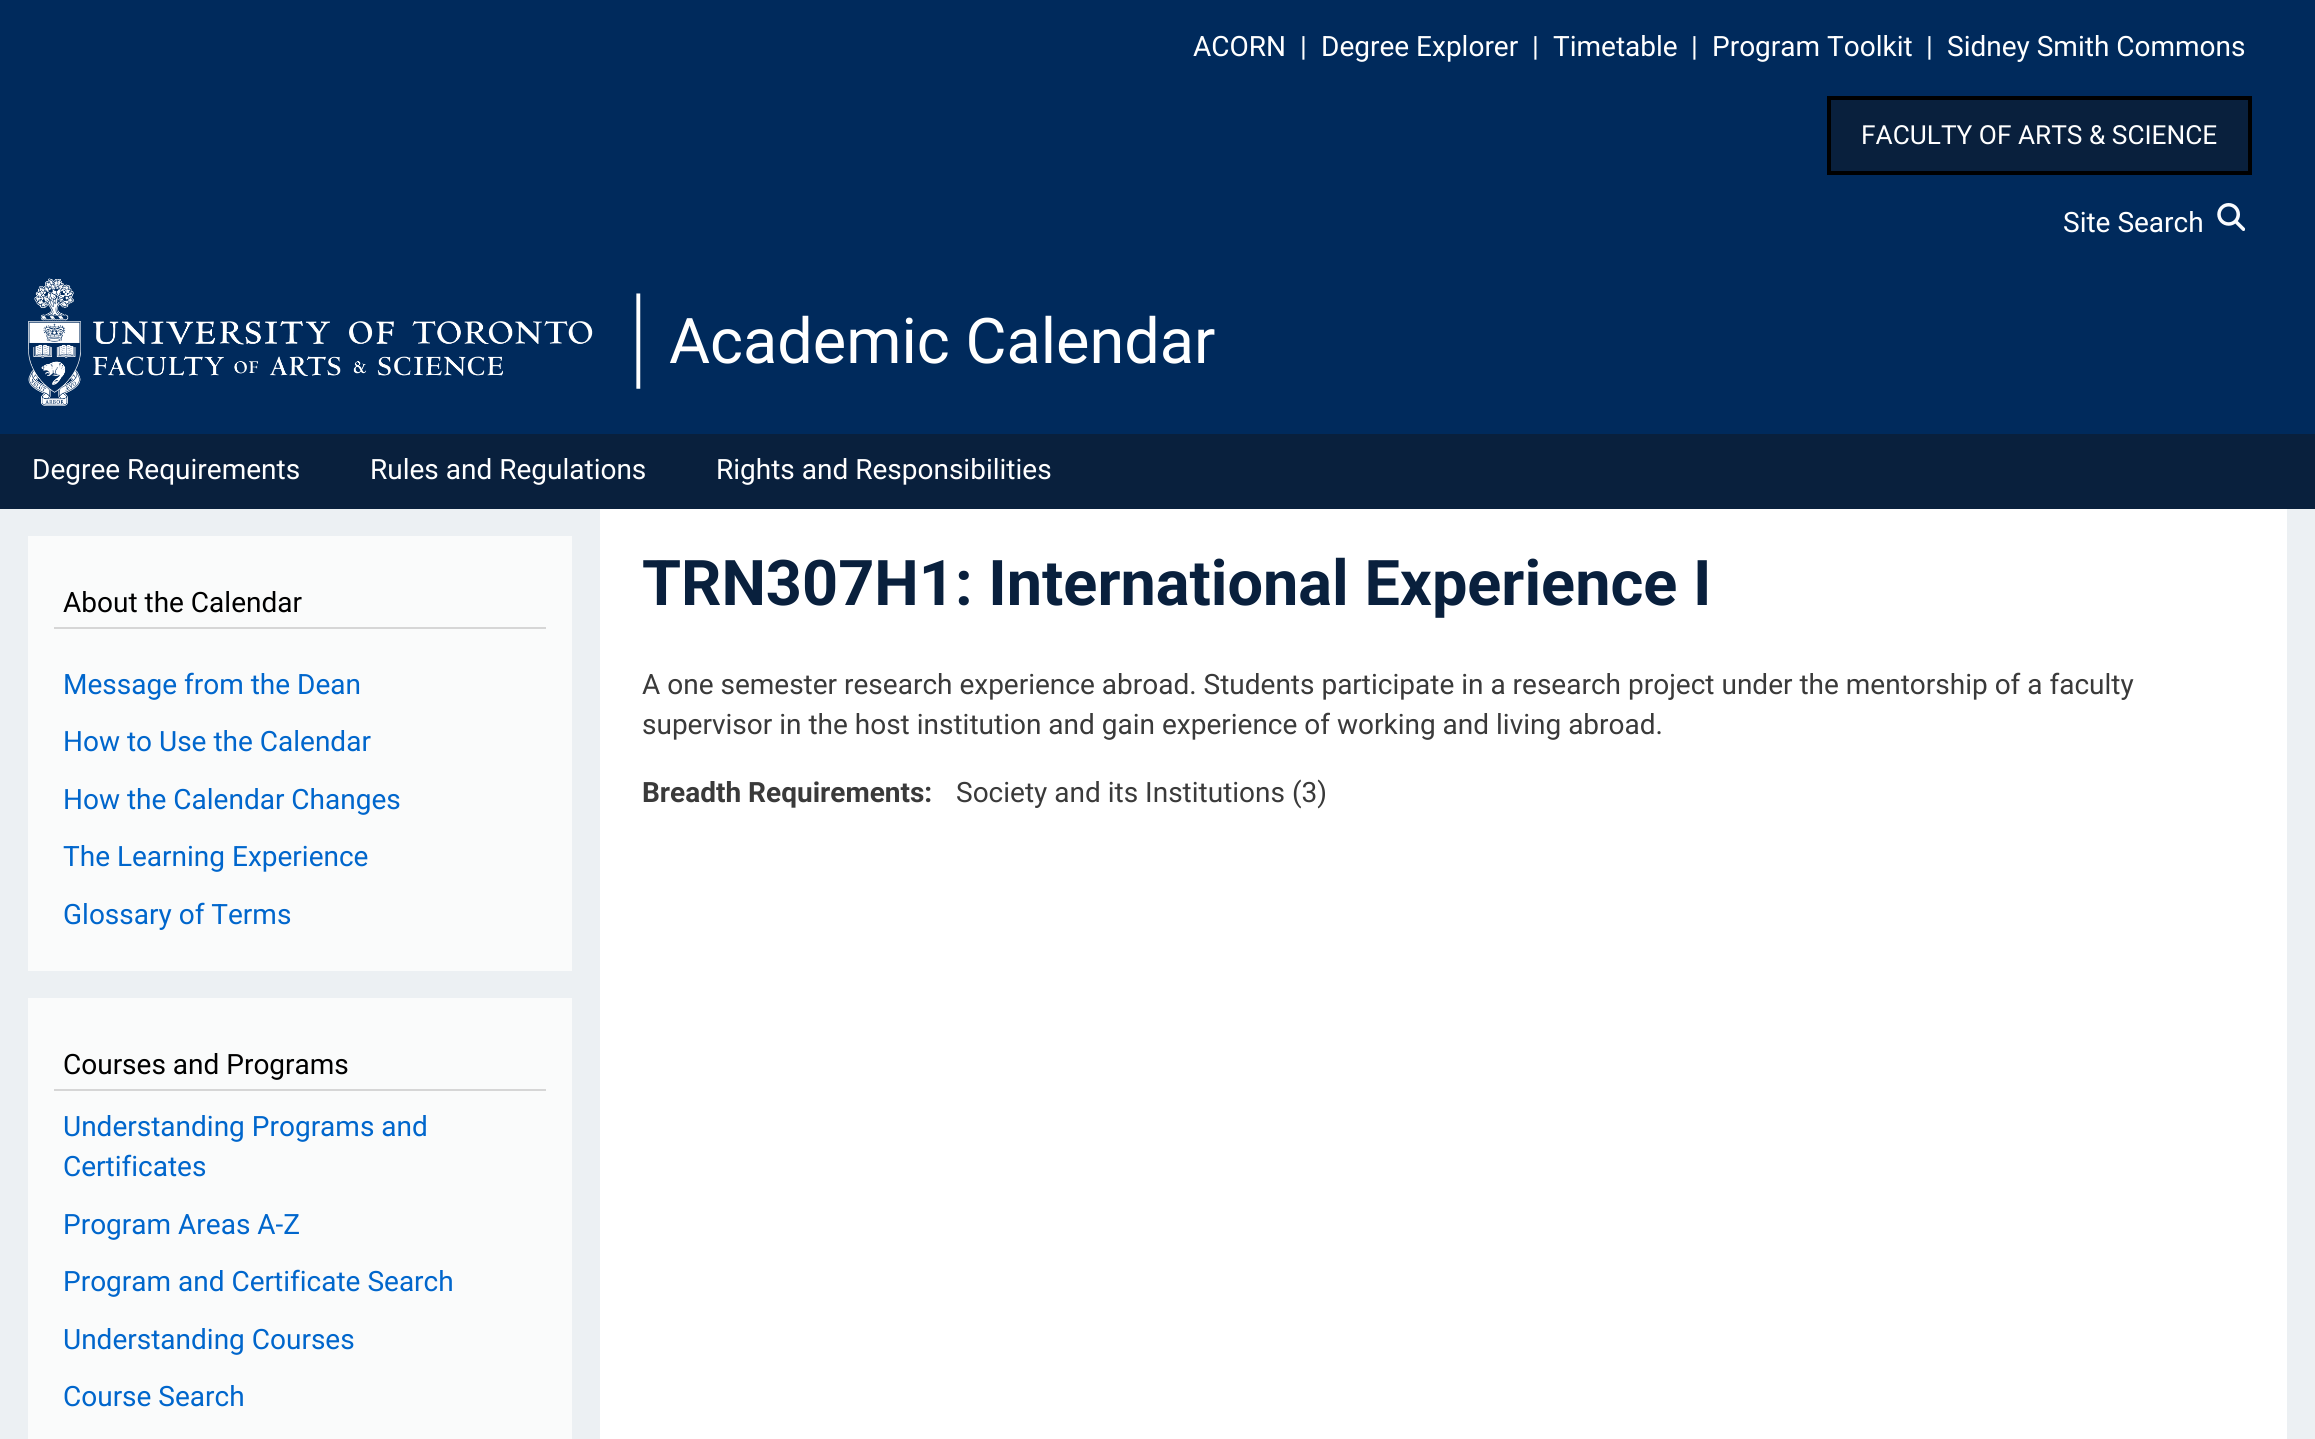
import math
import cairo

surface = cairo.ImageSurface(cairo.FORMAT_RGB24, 2315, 1439)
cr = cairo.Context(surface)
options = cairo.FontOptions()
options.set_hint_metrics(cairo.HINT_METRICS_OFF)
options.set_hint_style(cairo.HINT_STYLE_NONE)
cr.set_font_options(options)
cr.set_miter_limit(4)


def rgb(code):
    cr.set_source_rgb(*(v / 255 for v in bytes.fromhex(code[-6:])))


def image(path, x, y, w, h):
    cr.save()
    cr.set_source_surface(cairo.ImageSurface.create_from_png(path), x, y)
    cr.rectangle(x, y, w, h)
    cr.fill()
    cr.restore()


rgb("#002a5c")
cr.paint()
rgb("#09203d")
cr.rectangle(1829, 98, 421, 75)
cr.fill_preserve()
rgb("#000000")
cr.set_line_width(4)
cr.stroke()
image("img/1.png", 2217, 203, 28, 28)
image("img/2.png", 28, 278, 613, 128)
for x, y, w, h, color in [
    (0, 434, 2315, 75, "#09203d"),
    (0, 509, 2315, 930, "#ecf0f3"),
    (28, 536, 544, 435, "#fafbfb"),
    (54, 627, 492, 2, "#d6d6d6"),
    (28, 998, 544, 441, "#fafbfb"),
    (54, 1089, 492, 2, "#d6d6d6"),
    (600, 509, 1687, 930, "#ffffff"),
]:
    rgb(color)
    cr.rectangle(x, y, w, h)
    cr.fill()
cr.select_font_face("Roboto")
cr.set_font_size(28)
for x, y, s in [
    (1193, 56, "ACORN"),
    (1300, 56, "|"),
    (1321, 56, "Degree Explorer"),
    (1532, 56, "|"),
    (1553, 56, "Timetable"),
    (1691, 56, "|"),
    (1712, 56, "Program Toolkit"),
    (1926, 56, "|"),
    (1947, 56, "Sidney Smith Commons"),
]:
    cr.move_to(x, y)
    cr.show_text(s)
cr.set_font_size(26.25)
cr.move_to(1861, 144)
cr.show_text("FACULTY OF ARTS & SCIENCE")
cr.set_font_size(28)
cr.move_to(2063, 232)
cr.show_text("Site Search")
cr.set_font_size(63)
cr.move_to(669, 363)
cr.show_text("Academic Calendar")
cr.set_font_size(28)
for x, y, s in [
    (32, 479, "Degree Requirements"),
    (370, 479, "Rules and Regulations"),
    (716, 479, "Rights and Responsibilities"),
]:
    cr.move_to(x, y)
    cr.show_text(s)
rgb("#000000")
cr.move_to(63, 612)
cr.show_text("About the Calendar")
rgb("#0066cc")
for x, y, s in [
    (63, 694, "Message from the Dean"),
    (63, 751, "How to Use the Calendar"),
    (63, 809, "How the Calendar Changes"),
    (63, 866, "The Learning Experience"),
    (63, 924, "Glossary of Terms"),
]:
    cr.move_to(x, y)
    cr.show_text(s)
rgb("#000000")
cr.move_to(63, 1074)
cr.show_text("Courses and Programs")
rgb("#0066cc")
for x, y, s in [
    (63, 1136, "Understanding Programs and"),
    (63, 1176, "Certificates"),
    (63, 1234, "Program Areas A-Z"),
    (63, 1291, "Program and Certificate Search"),
    (63, 1349, "Understanding Courses"),
    (63, 1406, "Course Search"),
]:
    cr.move_to(x, y)
    cr.show_text(s)
cr.select_font_face("Roboto", cairo.FONT_SLANT_NORMAL, cairo.FONT_WEIGHT_BOLD)
cr.set_font_size(63)
rgb("#09203d")
cr.move_to(642, 605)
cr.show_text("TRN307H1: International Experience I")
cr.select_font_face("Roboto")
cr.set_font_size(28)
rgb("#3a3a3a")
cr.move_to(642, 694)
cr.show_text("A one semester research experience abroad. Students participate in a research project under the mentorship of a faculty")
cr.move_to(642, 734)
cr.show_text("supervisor in the host institution and gain experience of working and living abroad.")
cr.select_font_face("Roboto", cairo.FONT_SLANT_NORMAL, cairo.FONT_WEIGHT_BOLD)
cr.move_to(642, 802)
cr.show_text("Breadth Requirements:")
cr.select_font_face("Roboto")
cr.move_to(956, 802)
cr.show_text("Society and its Institutions (3)")
surface.write_to_png("page.png")
